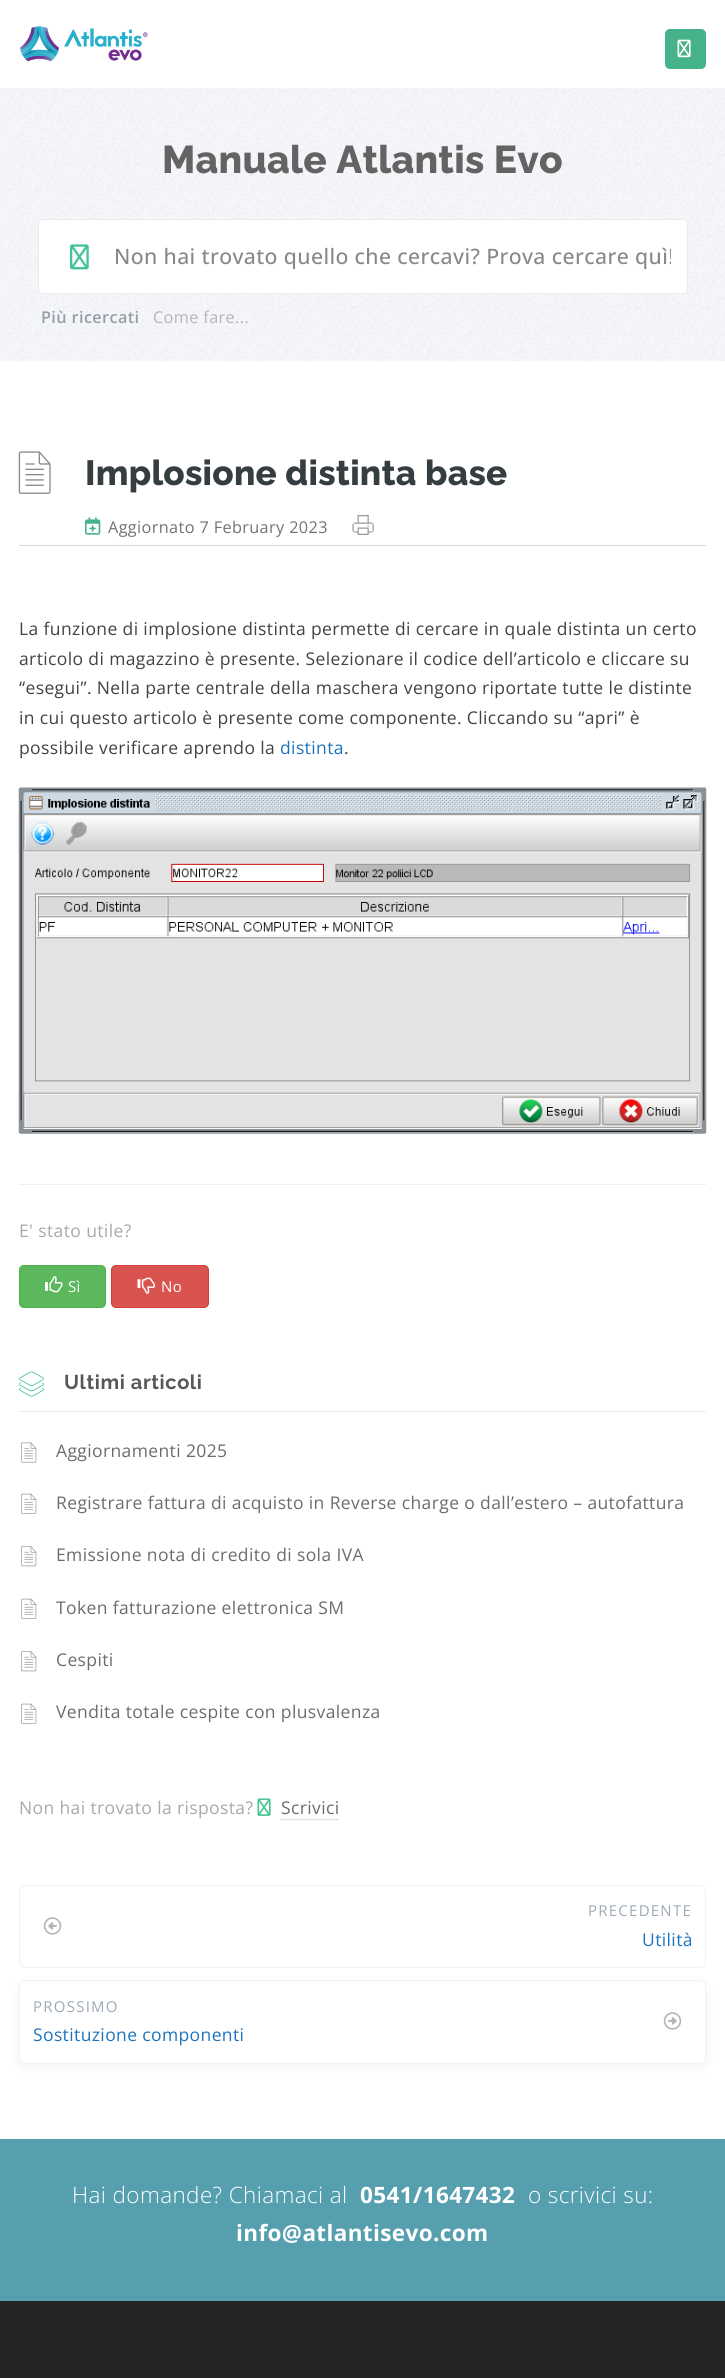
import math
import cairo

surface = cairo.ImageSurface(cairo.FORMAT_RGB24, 725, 2378)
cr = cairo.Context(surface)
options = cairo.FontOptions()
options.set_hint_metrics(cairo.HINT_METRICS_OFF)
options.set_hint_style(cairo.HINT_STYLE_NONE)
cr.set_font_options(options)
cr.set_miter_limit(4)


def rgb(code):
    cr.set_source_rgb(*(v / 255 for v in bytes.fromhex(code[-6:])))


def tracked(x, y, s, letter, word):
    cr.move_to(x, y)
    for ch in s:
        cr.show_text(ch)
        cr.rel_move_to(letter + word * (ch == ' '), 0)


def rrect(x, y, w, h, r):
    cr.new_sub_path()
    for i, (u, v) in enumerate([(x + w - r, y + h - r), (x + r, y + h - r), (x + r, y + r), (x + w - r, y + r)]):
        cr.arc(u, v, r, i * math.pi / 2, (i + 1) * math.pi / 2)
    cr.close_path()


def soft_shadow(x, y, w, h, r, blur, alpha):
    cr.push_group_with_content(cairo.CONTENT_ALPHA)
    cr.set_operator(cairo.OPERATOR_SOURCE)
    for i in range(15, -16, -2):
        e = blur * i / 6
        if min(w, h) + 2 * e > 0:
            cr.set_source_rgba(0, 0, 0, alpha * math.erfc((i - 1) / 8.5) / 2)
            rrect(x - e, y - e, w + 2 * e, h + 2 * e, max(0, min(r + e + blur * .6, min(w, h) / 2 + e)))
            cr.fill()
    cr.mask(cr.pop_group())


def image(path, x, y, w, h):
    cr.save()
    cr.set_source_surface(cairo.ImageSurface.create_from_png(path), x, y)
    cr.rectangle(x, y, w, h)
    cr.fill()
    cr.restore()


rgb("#ffffff")
cr.paint()
image("img/1.png", 20, 26, 128, 36)
rgb("#46b289")
rrect(665, 29, 41, 40, 5)
cr.fill()
image("img/2.png", 677, 39, 14, 19)
image("img/3.png", 0, 88, 725, 274)
rgb("#ffffff")
rrect(38, 219, 650, 75, 5)
cr.fill()
rrect(38.5, 219.5, 649, 74, 4.5)
cr.set_source_rgba(0.914, 0.914, 0.914, 0.9)
cr.set_line_width(1)
cr.stroke()
image("img/4.png", 70, 244, 19, 26)
image("img/5.png", 18, 451, 33, 43)
image("img/6.png", 85, 517, 16, 18)
image("img/7.png", 352, 515, 22, 20)
rgb("#d7d7d7")
cr.rectangle(19, 545, 687, 1)
cr.fill()
image("img/8.png", 18, 787, 689, 347)
rgb("#efefef")
cr.rectangle(19, 1184, 687, 1)
cr.fill()
rgb("#5cb85c")
rrect(19.5, 1265.5, 86, 42, 4.5)
cr.fill_preserve()
rgb("#4cae4c")
cr.stroke()
image("img/9.png", 45, 1276, 18, 17)
rgb("#d9534f")
rrect(111.5, 1265.5, 97, 42, 4.5)
cr.fill_preserve()
rgb("#d43f3a")
cr.stroke()
image("img/10.png", 137, 1277, 18, 17)
image("img/11.png", 19, 1371, 25, 26)
rgb("#eaeaea")
cr.rectangle(19, 1411, 687, 1)
cr.fill()
image("img/12.png", 21, 1442, 16, 21)
image("img/13.png", 21, 1493, 16, 21)
image("img/14.png", 21, 1546, 16, 21)
image("img/13.png", 21, 1598, 16, 21)
image("img/14.png", 21, 1651, 16, 21)
image("img/13.png", 21, 1703, 16, 21)
image("img/15.png", 257, 1798, 14, 18)
cr.new_path()
cr.move_to(281, 1819.5)
cr.line_to(339, 1819.5)
rgb("#c5c5c5")
cr.set_line_width(1.2)
cr.set_dash([1.25, 1.25])
cr.stroke()
rrect(19.5, 1885.5, 686, 82, 5.5)
rgb("#f1f1f1")
cr.set_line_width(1)
cr.set_dash([])
cr.stroke()
image("img/16.png", 43, 1917, 19, 18)
cr.save()
cr.set_fill_rule(cairo.FILL_RULE_EVEN_ODD)
cr.new_path()
cr.move_to(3, 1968)
cr.line_to(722, 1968)
cr.line_to(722, 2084)
cr.line_to(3, 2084)
cr.close_path()
cr.move_to(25, 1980)
cr.line_to(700, 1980)
cr.curve_to(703.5, 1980, 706, 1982.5, 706, 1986)
cr.line_to(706, 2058)
cr.curve_to(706, 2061.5, 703.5, 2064, 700, 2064)
cr.line_to(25, 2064)
cr.curve_to(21.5, 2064, 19, 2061.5, 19, 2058)
cr.line_to(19, 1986)
cr.curve_to(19, 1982.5, 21.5, 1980, 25, 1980)
cr.close_path()
cr.clip()
rgb("#74818d")
soft_shadow(19, 1984, 687, 84, 6, 5, 0.1)
cr.restore()
rrect(19.5, 1980.5, 686, 83, 5.5)
cr.stroke()
image("img/17.png", 663, 2012, 19, 18)
rgb("#559faf")
cr.rectangle(0, 2139, 725, 162)
cr.fill()
rgb("#252525")
cr.rectangle(0, 2301, 725, 77)
cr.fill()
cr.select_font_face("Raleway ExtraBold")
cr.set_font_size(38.75)
rgb("#626363")
tracked(162, 173, "Manuale Atlantis Evo", 0.25, 0)
cr.save()
cr.rectangle(114, 243, 557, 28)
cr.clip()
cr.select_font_face("Open Sans Medium")
cr.set_font_size(21.25)
rgb("#888888")
tracked(114, 264, "Non hai trovato quello che cercavi? Prova cercare quì!", 0.38, 0)
cr.restore()
cr.select_font_face("Open Sans SemiBold")
cr.set_font_size(16.25)
rgb("#989ca6")
tracked(41, 323, "Più ricercati", 0.38, 0)
cr.select_font_face("Open Sans")
rgb("#b5b5b5")
tracked(153, 323, "Come fare...", 0.38, 0)
cr.select_font_face("Raleway ExtraBold")
cr.set_font_size(35)
rgb("#363d40")
tracked(85, 485, "Implosione distinta base", 0.25, 0)
cr.select_font_face("Open Sans")
cr.set_font_size(16.25)
rgb("#727272")
tracked(108, 533, "Aggiornato 7 February 2023", 0.38, 0)
cr.set_font_size(17.5)
rgb("#424242")
for x, y, s in [
    (19, 635, "La funzione di implosione distinta permette di cercare in quale distinta un certo"),
    (19, 665, "articolo di magazzino è presente. Selezionare il codice dell’articolo e cliccare su"),
    (19, 694, "“esegui”. Nella parte centrale della maschera vengono riportate tutte le distinte"),
    (19, 724, "in cui questo articolo è presente come componente. Cliccando su “apri” è"),
    (19, 754, "possibile verificare aprendo la"),
]:
    tracked(x, y, s, 0.38, 0)
rgb("#1e73be")
tracked(280, 754, "distinta", 0.38, 0)
rgb("#424242")
tracked(344, 754, ".", 0.38, 0)
rgb("#a9a9a9")
tracked(19, 1237, "E' stato utile?", 0.38, 0)
cr.set_font_size(15)
rgb("#ffffff")
tracked(68, 1292, "Sì", 0.38, 0)
tracked(161, 1292, "No", 0.38, 0)
cr.select_font_face("Raleway", cairo.FONT_SLANT_NORMAL, cairo.FONT_WEIGHT_BOLD)
cr.set_font_size(20)
rgb("#585858")
tracked(64, 1389, "Ultimi articoli", 0.6, 0)
cr.select_font_face("Open Sans")
cr.set_font_size(17.5)
rgb("#6c6c6c")
for x, y, s in [
    (56, 1457, "Aggiornamenti 2025"),
    (56, 1509, "Registrare fattura di acquisto in Reverse charge o dall’estero – autofattura"),
    (56, 1561, "Emissione nota di credito di sola IVA"),
    (56, 1614, "Token fatturazione elettronica SM"),
    (56, 1666, "Cespiti"),
    (56, 1718, "Vendita totale cespite con plusvalenza"),
]:
    tracked(x, y, s, 0.38, 0)
rgb("#a9a9a9")
tracked(19, 1814, "Non hai trovato la risposta?", 0.38, 0)
rgb("#6c6c6c")
tracked(281, 1814, "Scrivici", 0.38, 0)
cr.set_font_size(15)
rgb("#9daab6")
tracked(588, 1916, "PRECEDENTE", 1.25, 0)
cr.set_font_size(17.5)
rgb("#1e73be")
tracked(642, 1946, "Utilità", 0.38, 0)
cr.set_font_size(15)
rgb("#9daab6")
tracked(33, 2012, "PROSSIMO", 1.25, 0)
cr.set_font_size(17.5)
rgb("#1e73be")
tracked(33, 2041, "Sostituzione componenti", 0.38, 0)
cr.select_font_face("Open Sans Light")
cr.set_font_size(22.5)
rgb("#ffffff")
tracked(72, 2203, "Hai domande? Chiamaci al", 0.38, 0)
cr.select_font_face("Open Sans", cairo.FONT_SLANT_NORMAL, cairo.FONT_WEIGHT_BOLD)
tracked(360, 2203, "0541/1647432", 0.38, 0)
cr.select_font_face("Open Sans Light")
tracked(528, 2203, "o scrivici su:", 0.38, 0)
cr.select_font_face("Open Sans", cairo.FONT_SLANT_NORMAL, cairo.FONT_WEIGHT_BOLD)
tracked(236, 2241, "info@atlantisevo.com", 0.38, 0)
surface.write_to_png("page.png")
